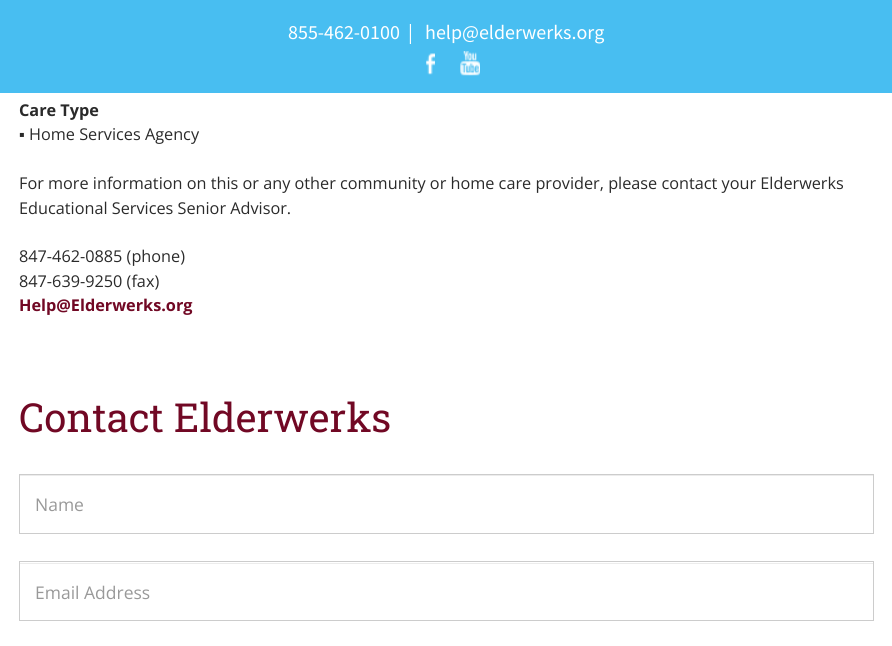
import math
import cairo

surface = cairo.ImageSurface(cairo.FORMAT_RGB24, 892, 646)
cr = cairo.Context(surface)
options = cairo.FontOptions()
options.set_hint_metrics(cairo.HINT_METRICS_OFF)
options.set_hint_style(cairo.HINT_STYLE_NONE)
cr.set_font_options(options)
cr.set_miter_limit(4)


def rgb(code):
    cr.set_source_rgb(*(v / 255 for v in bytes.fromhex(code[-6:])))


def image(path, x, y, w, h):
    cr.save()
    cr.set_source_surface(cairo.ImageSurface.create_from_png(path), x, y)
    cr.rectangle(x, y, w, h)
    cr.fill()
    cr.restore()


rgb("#ffffff")
cr.paint()
rgb("#48bef1")
cr.rectangle(0, 0, 892, 93)
cr.fill()
image("img/1.png", 426, 53, 9, 22)
image("img/2.png", 460, 51, 20, 25)
rgb("#ececec")
cr.rectangle(20, 475, 853, 1)
cr.fill()
cr.rectangle(19.5, 474.5, 854, 59)
rgb("#cccccc")
cr.set_line_width(1)
cr.stroke()
rgb("#ececec")
cr.rectangle(20, 563, 853, 1)
cr.fill()
cr.rectangle(19.5, 561.5, 854, 59)
rgb("#cccccc")
cr.stroke()
cr.select_font_face("Source Sans Pro")
cr.set_font_size(20)
rgb("#ffffff")
for x, y, s in [
    (288, 39, "855-462-0100"),
    (408, 39, "|"),
    (425, 39, "help@elderwerks.org"),
]:
    cr.move_to(x, y)
    cr.show_text(s)
cr.select_font_face("Open Sans", cairo.FONT_SLANT_NORMAL, cairo.FONT_WEIGHT_BOLD)
cr.set_font_size(16.25)
rgb("#2a2a2a")
cr.move_to(19, 116)
cr.show_text("Care Type")
cr.select_font_face("Liberation Sans")
cr.move_to(19, 140)
cr.show_text("▪")
cr.select_font_face("Open Sans")
for x, y, s in [
    (29, 140, "Home Services Agency"),
    (19, 189, "For more information on this or any other community or home care provider, please contact your Elderwerks"),
    (19, 214, "Educational Services Senior Advisor."),
    (19, 262, "847-462-0885 (phone)"),
    (19, 287, "847-639-9250 (fax)"),
]:
    cr.move_to(x, y)
    cr.show_text(s)
cr.select_font_face("Open Sans", cairo.FONT_SLANT_NORMAL, cairo.FONT_WEIGHT_BOLD)
rgb("#710824")
cr.move_to(19, 311)
cr.show_text("Help@Elderwerks.org")
cr.select_font_face("Roboto Slab")
cr.set_font_size(40)
cr.move_to(19, 432)
cr.show_text("Contact Elderwerks")
cr.select_font_face("Open Sans")
cr.set_font_size(17.5)
rgb("#999999")
cr.move_to(35, 511)
cr.show_text("Name")
cr.move_to(35, 599)
cr.show_text("Email Address")
surface.write_to_png("page.png")
